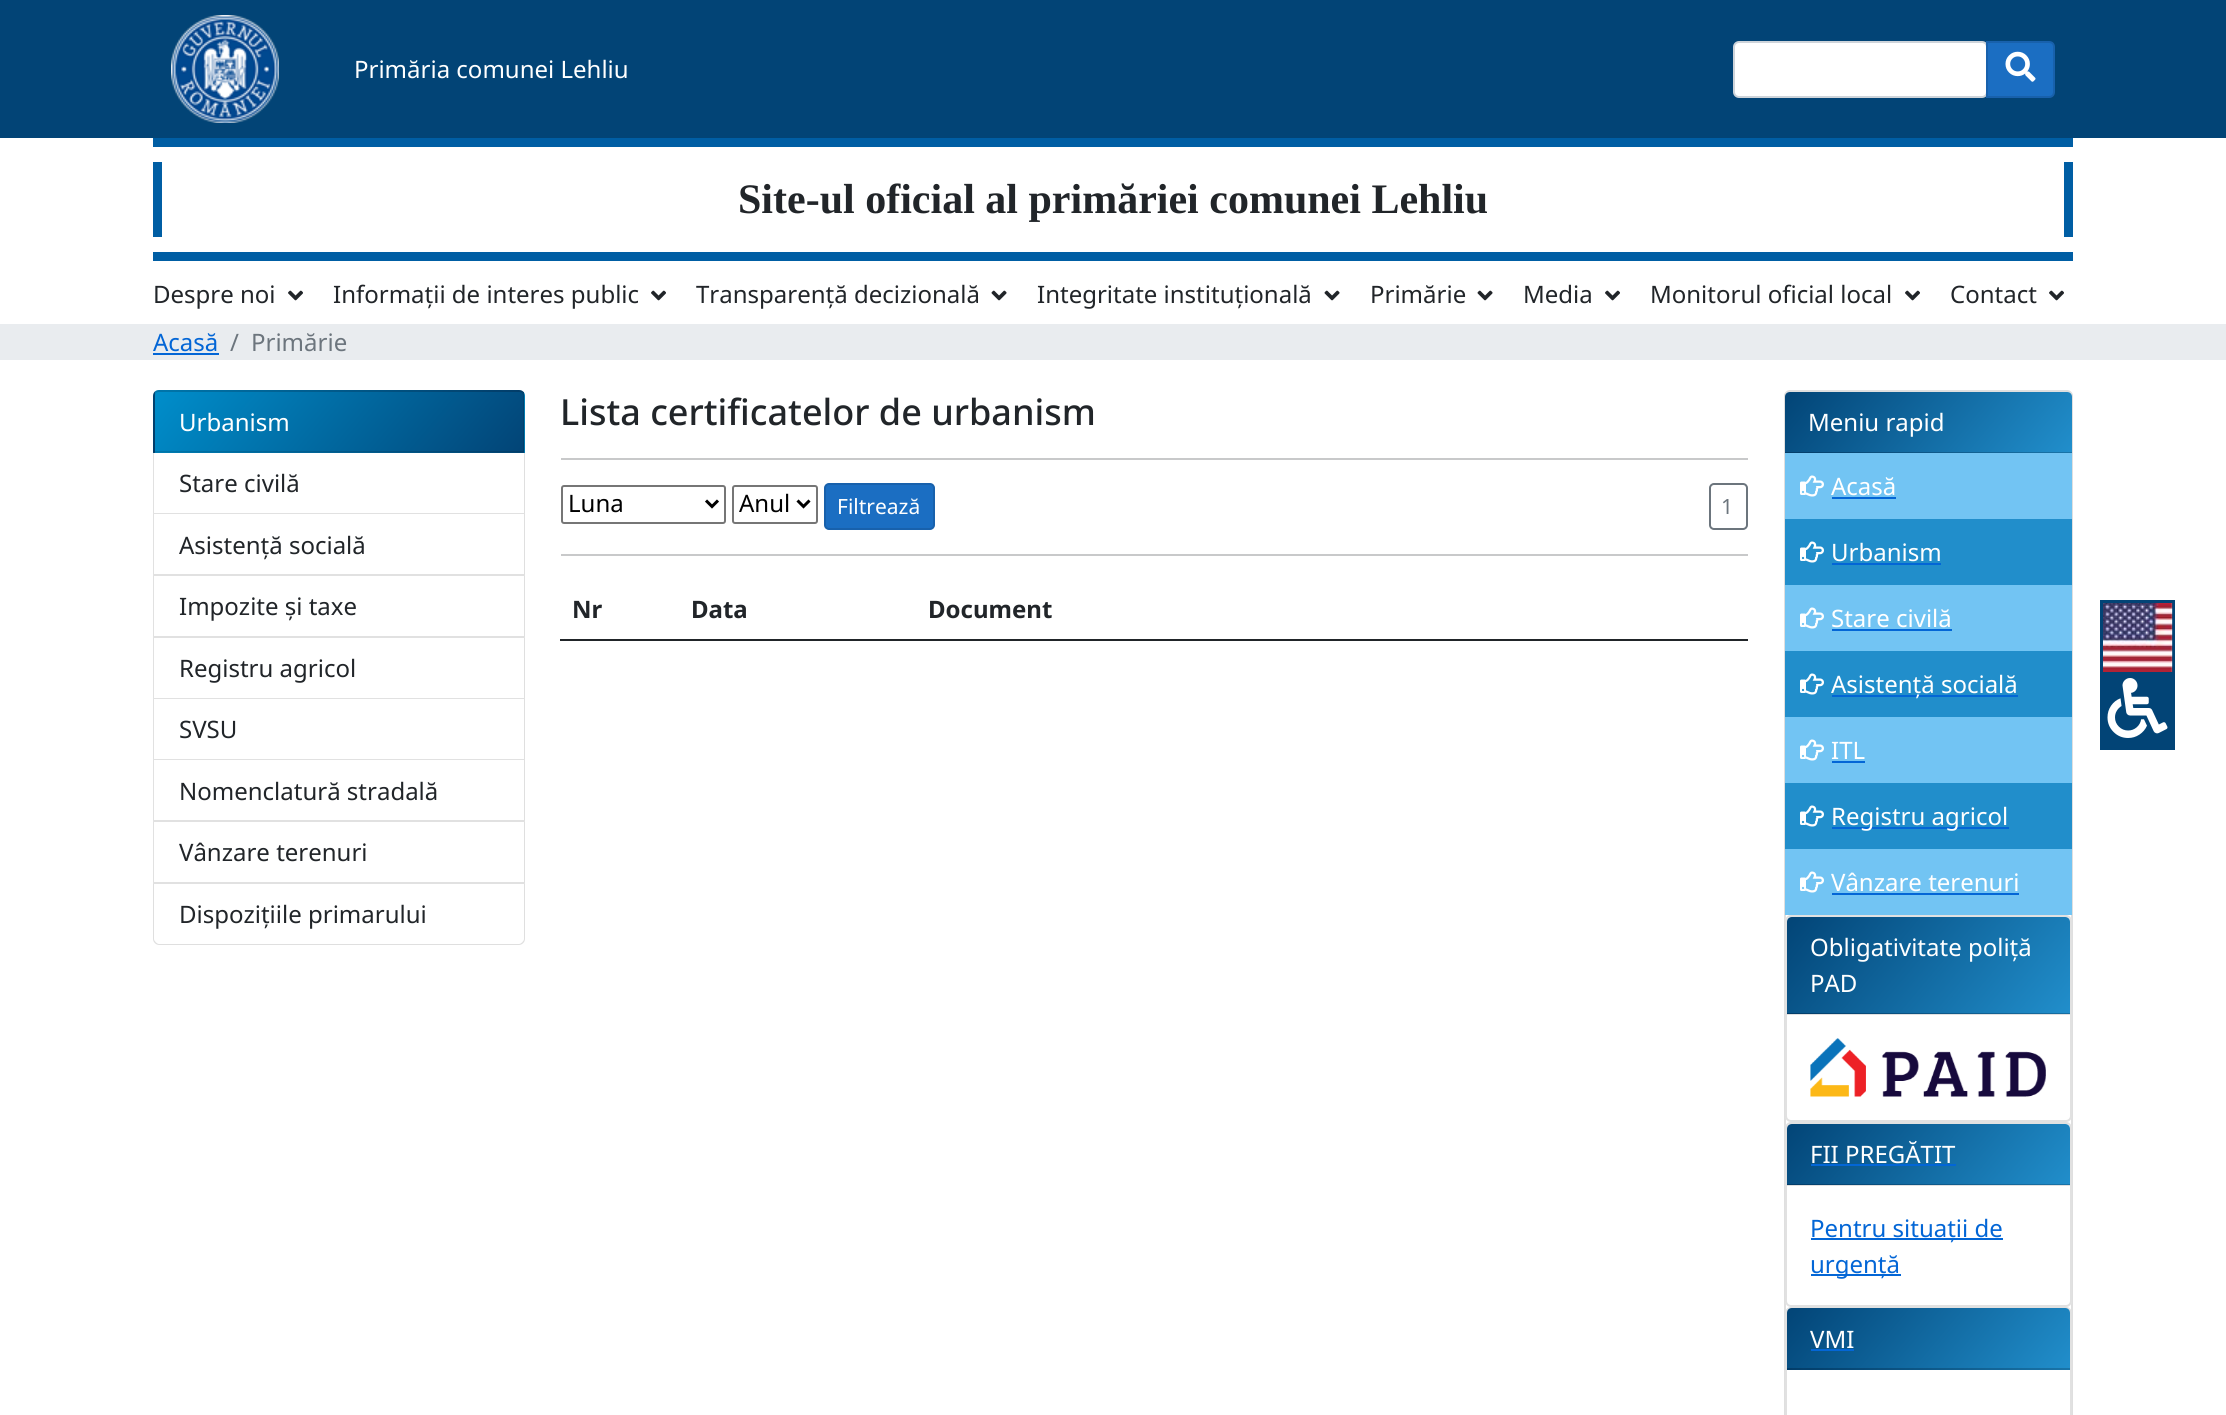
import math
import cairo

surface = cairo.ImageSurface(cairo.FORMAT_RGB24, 2226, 1415)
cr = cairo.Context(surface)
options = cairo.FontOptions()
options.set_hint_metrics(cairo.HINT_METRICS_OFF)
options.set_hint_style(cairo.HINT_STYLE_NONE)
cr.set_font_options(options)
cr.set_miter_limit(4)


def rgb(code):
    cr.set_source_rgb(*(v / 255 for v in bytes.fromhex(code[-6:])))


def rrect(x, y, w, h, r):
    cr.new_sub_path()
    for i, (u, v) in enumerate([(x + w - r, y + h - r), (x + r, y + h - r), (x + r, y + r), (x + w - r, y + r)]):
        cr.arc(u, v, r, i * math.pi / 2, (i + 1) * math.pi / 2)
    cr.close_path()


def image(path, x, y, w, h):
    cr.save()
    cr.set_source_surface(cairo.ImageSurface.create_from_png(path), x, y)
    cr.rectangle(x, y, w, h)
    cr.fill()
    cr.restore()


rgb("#ffffff")
cr.paint()
rgb("#024476")
cr.rectangle(0, 0, 2226, 138)
cr.fill()
image("img/1.png", 171, 15, 108, 108)
rgb("#ffffff")
rrect(1734, 42, 253, 55, 5)
cr.fill_preserve()
rgb("#ced4da")
cr.stroke()
rgb("#1b6ec2")
cr.new_path()
cr.move_to(1987, 42)
cr.line_to(2049, 42)
cr.curve_to(2052, 42, 2054, 44, 2054, 47)
cr.line_to(2054, 92)
cr.curve_to(2054, 95, 2052, 97, 2049, 97)
cr.line_to(1987, 97)
cr.close_path()
cr.fill_preserve()
rgb("#1861ac")
cr.stroke()
image("img/2.png", 2005, 51, 31, 31)
for x, y, w, h, color in [
    (153, 138, 1920, 9, "#005ea4"),
    (153, 162, 9, 75, "#005ea4"),
    (2064, 162, 9, 75, "#005ea4"),
    (153, 252, 1920, 9, "#005ea4"),
]:
    rgb(color)
    cr.rectangle(x, y, w, h)
    cr.fill()
image("img/3.png", 288, 290, 15, 11)
image("img/3.png", 651, 290, 15, 11)
image("img/4.png", 991, 290, 16, 11)
image("img/4.png", 1324, 290, 16, 11)
image("img/4.png", 1477, 290, 16, 11)
image("img/3.png", 1605, 290, 15, 11)
image("img/3.png", 1905, 290, 15, 11)
image("img/3.png", 2049, 290, 15, 11)
rgb("#e9ecef")
cr.rectangle(0, 324, 2226, 36)
cr.fill()
rgb("#0366d6")
cr.rectangle(153, 353, 66, 2)
cr.fill()
cr.save()
cr.new_path()
cr.move_to(159, 390)
cr.line_to(519, 390)
cr.curve_to(522.5, 390, 525, 392.5, 525, 396)
cr.line_to(525, 453)
cr.line_to(153, 453)
cr.line_to(153, 396)
cr.curve_to(153, 392.5, 155.5, 390, 159, 390)
cr.close_path()
cr.clip()
gradient = cairo.LinearGradient(-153, 258, 93, 465)
gradient.add_color_stop_rgba(0, 0, 0.557, 0.796, 1)
gradient.add_color_stop_rgba(1, 0.008, 0.267, 0.463, 1)
cr.set_source(gradient)
cr.rectangle(153, 391, 2, 1)
cr.fill()
gradient = cairo.LinearGradient(216, 258, 462, 465)
gradient.add_color_stop_rgba(0, 0, 0.557, 0.796, 1)
gradient.add_color_stop_rgba(1, 0.008, 0.267, 0.463, 1)
cr.set_source(gradient)
cr.rectangle(155, 390, 369, 2)
cr.fill()
gradient = cairo.LinearGradient(-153, 318, 93, 525)
gradient.add_color_stop_rgba(0, 0, 0.557, 0.796, 1)
gradient.add_color_stop_rgba(1, 0.008, 0.267, 0.463, 1)
cr.set_source(gradient)
cr.rectangle(153, 392, 2, 60)
cr.fill()
cr.restore()
gradient = cairo.LinearGradient(216, 318, 462, 525)
gradient.add_color_stop_rgba(0, 0, 0.557, 0.796, 1)
gradient.add_color_stop_rgba(1, 0.008, 0.267, 0.463, 1)
cr.set_source(gradient)
cr.rectangle(155, 392, 369, 60)
cr.fill()
cr.save()
cr.new_path()
cr.move_to(159, 390)
cr.line_to(519, 390)
cr.curve_to(522.5, 390, 525, 392.5, 525, 396)
cr.line_to(525, 453)
cr.line_to(153, 453)
cr.line_to(153, 396)
cr.curve_to(153, 392.5, 155.5, 390, 159, 390)
cr.close_path()
cr.clip()
gradient = cairo.LinearGradient(585, 318, 831, 525)
gradient.add_color_stop_rgba(0, 0, 0.557, 0.796, 1)
gradient.add_color_stop_rgba(1, 0.008, 0.267, 0.463, 1)
cr.set_source(gradient)
cr.rectangle(524, 392, 1, 60)
cr.fill()
cr.restore()
gradient = cairo.LinearGradient(-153, 378, 93, 585)
gradient.add_color_stop_rgba(0, 0, 0.557, 0.796, 1)
gradient.add_color_stop_rgba(1, 0.008, 0.267, 0.463, 1)
cr.set_source(gradient)
cr.rectangle(153, 452, 2, 1)
cr.fill()
gradient = cairo.LinearGradient(216, 378, 462, 585)
gradient.add_color_stop_rgba(0, 0, 0.557, 0.796, 1)
gradient.add_color_stop_rgba(1, 0.008, 0.267, 0.463, 1)
cr.set_source(gradient)
cr.rectangle(155, 452, 369, 1)
cr.fill()
gradient = cairo.LinearGradient(585, 378, 831, 585)
gradient.add_color_stop_rgba(0, 0, 0.557, 0.796, 1)
gradient.add_color_stop_rgba(1, 0.008, 0.267, 0.463, 1)
cr.set_source(gradient)
cr.rectangle(524, 452, 1, 1)
cr.fill()
cr.new_path()
cr.move_to(159, 391)
cr.line_to(519, 391)
cr.curve_to(522, 391, 524, 393, 524, 396)
cr.line_to(524, 452)
cr.line_to(154, 452)
cr.line_to(154, 396)
cr.curve_to(154, 393, 156, 391, 159, 391)
cr.close_path()
cr.set_source_rgba(0, 0, 0, 0.12)
cr.stroke()
rgb("#dfdfdf")
cr.new_path()
cr.move_to(525, 453)
cr.line_to(525, 514)
cr.line_to(524, 513)
cr.line_to(524, 453)
cr.close_path()
cr.fill()
cr.set_source_rgba(0, 0, 0, 0.12)
cr.new_path()
cr.move_to(525, 514)
cr.line_to(153, 514)
cr.line_to(154, 513)
cr.line_to(524, 513)
cr.close_path()
cr.fill()
cr.new_path()
cr.move_to(153, 514)
cr.line_to(153, 453)
cr.line_to(154, 453)
cr.line_to(154, 513)
cr.close_path()
cr.fill()
rgb("#dfdfdf")
cr.new_path()
cr.move_to(525, 514)
cr.line_to(525, 576)
cr.line_to(524, 574)
cr.line_to(524, 514)
cr.close_path()
cr.fill()
cr.set_source_rgba(0, 0, 0, 0.12)
cr.new_path()
cr.move_to(525, 576)
cr.line_to(153, 576)
cr.line_to(154, 574)
cr.line_to(524, 574)
cr.close_path()
cr.fill()
cr.new_path()
cr.move_to(153, 576)
cr.line_to(153, 514)
cr.line_to(154, 514)
cr.line_to(154, 574)
cr.close_path()
cr.fill()
rgb("#dfdfdf")
cr.new_path()
cr.move_to(525, 576)
cr.line_to(525, 638)
cr.line_to(524, 636)
cr.line_to(524, 576)
cr.close_path()
cr.fill()
cr.set_source_rgba(0, 0, 0, 0.12)
cr.new_path()
cr.move_to(525, 638)
cr.line_to(153, 638)
cr.line_to(154, 636)
cr.line_to(524, 636)
cr.close_path()
cr.fill()
cr.new_path()
cr.move_to(153, 638)
cr.line_to(153, 576)
cr.line_to(154, 576)
cr.line_to(154, 636)
cr.close_path()
cr.fill()
rgb("#dfdfdf")
cr.new_path()
cr.move_to(525, 638)
cr.line_to(525, 699)
cr.line_to(524, 698)
cr.line_to(524, 638)
cr.close_path()
cr.fill()
cr.set_source_rgba(0, 0, 0, 0.12)
cr.new_path()
cr.move_to(525, 699)
cr.line_to(153, 699)
cr.line_to(154, 698)
cr.line_to(524, 698)
cr.close_path()
cr.fill()
cr.new_path()
cr.move_to(153, 699)
cr.line_to(153, 638)
cr.line_to(154, 638)
cr.line_to(154, 698)
cr.close_path()
cr.fill()
rgb("#dfdfdf")
cr.new_path()
cr.move_to(525, 699)
cr.line_to(525, 760)
cr.line_to(524, 759)
cr.line_to(524, 699)
cr.close_path()
cr.fill()
cr.set_source_rgba(0, 0, 0, 0.12)
cr.new_path()
cr.move_to(525, 760)
cr.line_to(153, 760)
cr.line_to(154, 759)
cr.line_to(524, 759)
cr.close_path()
cr.fill()
cr.new_path()
cr.move_to(153, 760)
cr.line_to(153, 699)
cr.line_to(154, 699)
cr.line_to(154, 759)
cr.close_path()
cr.fill()
rgb("#dfdfdf")
cr.new_path()
cr.move_to(525, 760)
cr.line_to(525, 822)
cr.line_to(524, 820)
cr.line_to(524, 760)
cr.close_path()
cr.fill()
cr.set_source_rgba(0, 0, 0, 0.12)
cr.new_path()
cr.move_to(525, 822)
cr.line_to(153, 822)
cr.line_to(154, 820)
cr.line_to(524, 820)
cr.close_path()
cr.fill()
cr.new_path()
cr.move_to(153, 822)
cr.line_to(153, 760)
cr.line_to(154, 760)
cr.line_to(154, 820)
cr.close_path()
cr.fill()
rgb("#dfdfdf")
cr.new_path()
cr.move_to(525, 822)
cr.line_to(525, 884)
cr.line_to(524, 882)
cr.line_to(524, 822)
cr.close_path()
cr.fill()
cr.set_source_rgba(0, 0, 0, 0.12)
cr.new_path()
cr.move_to(525, 884)
cr.line_to(153, 884)
cr.line_to(154, 882)
cr.line_to(524, 882)
cr.close_path()
cr.fill()
cr.new_path()
cr.move_to(153, 884)
cr.line_to(153, 822)
cr.line_to(154, 822)
cr.line_to(154, 882)
cr.close_path()
cr.fill()
rgb("#dfdfdf")
cr.set_fill_rule(cairo.FILL_RULE_EVEN_ODD)
cr.new_path()
cr.move_to(153, 884)
cr.line_to(525, 884)
cr.line_to(525, 939)
cr.curve_to(525, 942, 522, 945, 519, 945)
cr.line_to(159, 945)
cr.curve_to(156, 945, 153, 942, 153, 939)
cr.close_path()
cr.move_to(154, 884)
cr.line_to(524, 884)
cr.line_to(524, 939)
cr.curve_to(524, 941, 521, 944, 519, 944)
cr.line_to(159, 944)
cr.curve_to(157, 944, 154, 941, 154, 939)
cr.close_path()
cr.fill()
rgb("#c8c9ca")
cr.rectangle(561, 458, 1187, 2)
cr.fill()
rrect(562, 486, 163, 37, 2)
rgb("#767676")
cr.stroke()
cr.new_path()
cr.move_to(706, 500.5)
cr.line_to(712, 506.5)
cr.line_to(718, 500.5)
rgb("#000000")
cr.set_line_width(3)
cr.stroke()
rrect(733, 486, 84, 37, 2)
rgb("#767676")
cr.set_line_width(2)
cr.stroke()
cr.new_path()
cr.move_to(797.5, 500.5)
cr.line_to(803.5, 506.5)
cr.line_to(809.5, 500.5)
rgb("#000000")
cr.set_line_width(3)
cr.stroke()
rgb("#1b6ec2")
rrect(825, 484, 109, 45, 4)
cr.fill_preserve()
rgb("#1861ac")
cr.set_line_width(2)
cr.stroke()
rrect(1710, 484, 37, 45, 4)
rgb("#6c757d")
cr.stroke()
rgb("#c8c9ca")
cr.rectangle(561, 554, 1187, 2)
cr.fill()
rgb("#212529")
cr.rectangle(560, 639, 1188, 2)
cr.fill()
rrect(1785, 391, 287, 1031, 5)
rgb("#dfdfdf")
cr.stroke()
gradient = cairo.LinearGradient(2027, 504, 1829, 339)
gradient.add_color_stop_rgba(0, 0.129, 0.557, 0.796, 1)
gradient.add_color_stop_rgba(1, 0.008, 0.267, 0.463, 1)
cr.set_source(gradient)
cr.new_path()
cr.move_to(1790, 392)
cr.line_to(2067, 392)
cr.curve_to(2070, 392, 2072, 394, 2072, 397)
cr.line_to(2072, 452)
cr.line_to(1785, 452)
cr.line_to(1785, 397)
cr.curve_to(1785, 394, 1787, 392, 1790, 392)
cr.close_path()
cr.fill()
gradient = cairo.LinearGradient(2027, 564, 1829, 399)
gradient.add_color_stop_rgba(0, 0.129, 0.557, 0.796, 1)
gradient.add_color_stop_rgba(1, 0.008, 0.267, 0.463, 1)
cr.set_source(gradient)
cr.rectangle(1785, 452, 287, 1)
cr.fill()
cr.set_source_rgba(0, 0, 0, 0.12)
cr.rectangle(1785, 452, 287, 1)
cr.fill()
rgb("#72c4f3")
cr.rectangle(1785, 453, 287, 66)
cr.fill()
image("img/5.png", 1800, 475, 24, 22)
rgb("#0366d6")
cr.rectangle(1832, 497, 64, 2)
cr.fill()
rgb("#218ecb")
cr.rectangle(1785, 519, 287, 66)
cr.fill()
image("img/6.png", 1800, 541, 24, 22)
rgb("#0366d6")
cr.rectangle(1832, 563, 109, 2)
cr.fill()
rgb("#72c4f3")
cr.rectangle(1785, 585, 287, 66)
cr.fill()
image("img/5.png", 1800, 607, 24, 22)
rgb("#0366d6")
cr.rectangle(1832, 629, 120, 2)
cr.fill()
rgb("#218ecb")
cr.rectangle(1785, 651, 287, 66)
cr.fill()
image("img/6.png", 1800, 673, 24, 22)
rgb("#0366d6")
cr.rectangle(1832, 695, 186, 2)
cr.fill()
rgb("#72c4f3")
cr.rectangle(1785, 717, 287, 66)
cr.fill()
image("img/5.png", 1800, 739, 24, 22)
rgb("#0366d6")
cr.rectangle(1832, 761, 33, 2)
cr.fill()
rgb("#218ecb")
cr.rectangle(1785, 783, 287, 66)
cr.fill()
image("img/6.png", 1800, 805, 24, 22)
rgb("#0366d6")
cr.rectangle(1832, 827, 177, 2)
cr.fill()
rgb("#72c4f3")
cr.rectangle(1785, 849, 287, 66)
cr.fill()
image("img/5.png", 1800, 871, 24, 22)
rgb("#0366d6")
cr.rectangle(1832, 893, 187, 2)
cr.fill()
rgb("#ffffff")
rrect(1785, 915, 287, 207, 6)
cr.fill()
rgb("#e0e0e0")
cr.rectangle(1787, 1014, 283, 1)
cr.fill()
rrect(1786, 916, 285, 205, 5)
cr.set_source_rgba(0, 0, 0, 0.12)
cr.stroke()
gradient = cairo.LinearGradient(2035, 1054, 1821, 875)
gradient.add_color_stop_rgba(0, 0.129, 0.557, 0.796, 1)
gradient.add_color_stop_rgba(1, 0.008, 0.267, 0.463, 1)
cr.set_source(gradient)
cr.new_path()
cr.move_to(1792, 917)
cr.line_to(2065, 917)
cr.curve_to(2068, 917, 2070, 919, 2070, 922)
cr.line_to(2070, 1013)
cr.line_to(1787, 1013)
cr.line_to(1787, 922)
cr.curve_to(1787, 919, 1789, 917, 1792, 917)
cr.close_path()
cr.fill()
gradient = cairo.LinearGradient(2035, 1150, 1821, 971)
gradient.add_color_stop_rgba(0, 0.114, 0.49, 0.702, 1)
gradient.add_color_stop_rgba(1, 0.008, 0.235, 0.408, 1)
cr.set_source(gradient)
cr.rectangle(1787, 1013, 283, 1)
cr.fill()
image("img/7.png", 1810, 1038, 236, 59)
rgb("#ffffff")
rrect(1785, 1122, 287, 185, 6)
cr.fill()
rgb("#e0e0e0")
cr.rectangle(1787, 1185, 283, 1)
cr.fill()
rrect(1786, 1123, 285, 183, 5)
cr.set_source_rgba(0, 0, 0, 0.12)
cr.stroke()
gradient = cairo.LinearGradient(2026, 1236, 1830, 1071)
gradient.add_color_stop_rgba(0, 0.129, 0.557, 0.796, 1)
gradient.add_color_stop_rgba(1, 0.008, 0.267, 0.463, 1)
cr.set_source(gradient)
cr.new_path()
cr.move_to(1792, 1124)
cr.line_to(2065, 1124)
cr.curve_to(2068, 1124, 2070, 1126, 2070, 1129)
cr.line_to(2070, 1184)
cr.line_to(1787, 1184)
cr.line_to(1787, 1129)
cr.curve_to(1787, 1126, 1789, 1124, 1792, 1124)
cr.close_path()
cr.fill()
gradient = cairo.LinearGradient(2026, 1296, 1830, 1131)
gradient.add_color_stop_rgba(0, 0.114, 0.49, 0.702, 1)
gradient.add_color_stop_rgba(1, 0.008, 0.235, 0.408, 1)
cr.set_source(gradient)
cr.rectangle(1787, 1184, 283, 1)
cr.fill()
for x, y, w, h, color in [
    (1811, 1164, 145, 2, "#0366d6"),
    (1811, 1238, 192, 2, "#0366d6"),
    (1811, 1274, 90, 2, "#0366d6"),
]:
    rgb(color)
    cr.rectangle(x, y, w, h)
    cr.fill()
rgb("#ffffff")
rrect(1785, 1307, 287, 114, 6)
cr.fill()
rrect(1786, 1308, 285, 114, 5)
cr.set_source_rgba(0, 0, 0, 0.12)
cr.stroke()
gradient = cairo.LinearGradient(2026, 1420, 1830, 1256)
gradient.add_color_stop_rgba(0, 0.129, 0.557, 0.796, 1)
gradient.add_color_stop_rgba(1, 0.008, 0.267, 0.463, 1)
cr.set_source(gradient)
cr.new_path()
cr.move_to(1792, 1308)
cr.line_to(2065, 1308)
cr.curve_to(2068, 1308, 2070, 1310, 2070, 1313)
cr.line_to(2070, 1368)
cr.line_to(1787, 1368)
cr.line_to(1787, 1313)
cr.curve_to(1787, 1310, 1789, 1308, 1792, 1308)
cr.close_path()
cr.fill()
gradient = cairo.LinearGradient(2026, 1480, 1830, 1316)
gradient.add_color_stop_rgba(0, 0.129, 0.557, 0.796, 1)
gradient.add_color_stop_rgba(1, 0.008, 0.267, 0.463, 1)
cr.set_source(gradient)
cr.rectangle(1787, 1368, 283, 2)
cr.fill()
cr.set_source_rgba(0, 0, 0, 0.12)
cr.rectangle(1787, 1368, 283, 2)
cr.fill()
rgb("#0366d6")
cr.rectangle(1811, 1349, 43, 2)
cr.fill()
cr.rectangle(2101.5, 601.5, 72, 72)
rgb("#024476")
cr.set_line_width(3)
cr.stroke()
image("img/8.png", 2103, 603, 70, 69)
cr.rectangle(2100, 675, 75, 75)
cr.fill()
image("img/9.png", 2107, 678, 61, 60)
cr.select_font_face("Noto Sans")
cr.set_font_size(24)
rgb("#ffffff")
cr.move_to(354, 78)
cr.show_text("Primăria comunei Lehliu")
cr.select_font_face("Liberation Serif", cairo.FONT_SLANT_NORMAL, cairo.FONT_WEIGHT_BOLD)
cr.set_font_size(42)
rgb("#212529")
cr.move_to(738, 213)
cr.show_text("Site-ul oficial al primăriei comunei Lehliu")
cr.select_font_face("Noto Sans")
cr.set_font_size(24)
for x, y, s in [
    (153, 303, "Despre noi"),
    (333, 303, "Informații de interes public"),
    (696, 303, "Transparență decizională"),
    (1037, 303, "Integritate instituțională"),
    (1370, 303, "Primărie"),
    (1523, 303, "Media"),
    (1650, 303, "Monitorul oficial local"),
    (1950, 303, "Contact"),
]:
    cr.move_to(x, y)
    cr.show_text(s)
rgb("#0366d6")
cr.move_to(153, 351)
cr.show_text("Acasă")
rgb("#6c757d")
cr.move_to(230, 351)
cr.show_text("/")
cr.move_to(251, 351)
cr.show_text("Primărie")
rgb("#ffffff")
cr.move_to(179, 431)
cr.show_text("Urbanism")
rgb("#212529")
for x, y, s in [
    (179, 492, "Stare civilă"),
    (179, 554, "Asistență socială"),
    (179, 615, "Impozite și taxe"),
    (179, 677, "Registru agricol"),
    (179, 738, "SVSU"),
    (179, 800, "Nomenclatură stradală"),
    (179, 861, "Vânzare terenuri"),
    (179, 923, "Dispozițiile primarului"),
]:
    cr.move_to(x, y)
    cr.show_text(s)
cr.select_font_face("Noto Sans Medium")
cr.set_font_size(36)
cr.move_to(560, 425)
cr.show_text("Lista certificatelor de urbanism")
cr.select_font_face("Noto Sans")
cr.set_font_size(24)
rgb("#000000")
cr.move_to(568, 512)
cr.show_text("Luna")
cr.move_to(739, 512)
cr.show_text("Anul")
cr.set_font_size(21)
rgb("#ffffff")
cr.move_to(837, 514)
cr.show_text("Filtrează")
rgb("#6c757d")
cr.move_to(1721, 514)
cr.show_text("1")
cr.select_font_face("Noto Sans", cairo.FONT_SLANT_NORMAL, cairo.FONT_WEIGHT_BOLD)
cr.set_font_size(24)
rgb("#212529")
for x, y, s in [
    (572, 618, "Nr"),
    (691, 618, "Data"),
    (928, 618, "Document"),
]:
    cr.move_to(x, y)
    cr.show_text(s)
cr.select_font_face("Noto Sans")
rgb("#ffffff")
for x, y, s in [
    (1808, 431, "Meniu rapid"),
    (1831, 495, "Acasă"),
    (1831, 561, "Urbanism"),
    (1831, 627, "Stare civilă"),
    (1831, 693, "Asistență socială"),
    (1831, 759, "ITL"),
    (1831, 825, "Registru agricol"),
    (1831, 891, "Vânzare terenuri"),
    (1810, 956, "Obligativitate poliță"),
    (1810, 992, "PAD"),
    (1810, 1163, "FII PREGĂTIT"),
]:
    cr.move_to(x, y)
    cr.show_text(s)
rgb("#0366d6")
cr.move_to(1810, 1237)
cr.show_text("Pentru situații de")
cr.move_to(1810, 1273)
cr.show_text("urgență")
rgb("#ffffff")
cr.move_to(1810, 1348)
cr.show_text("VMI")
surface.write_to_png("page.png")
